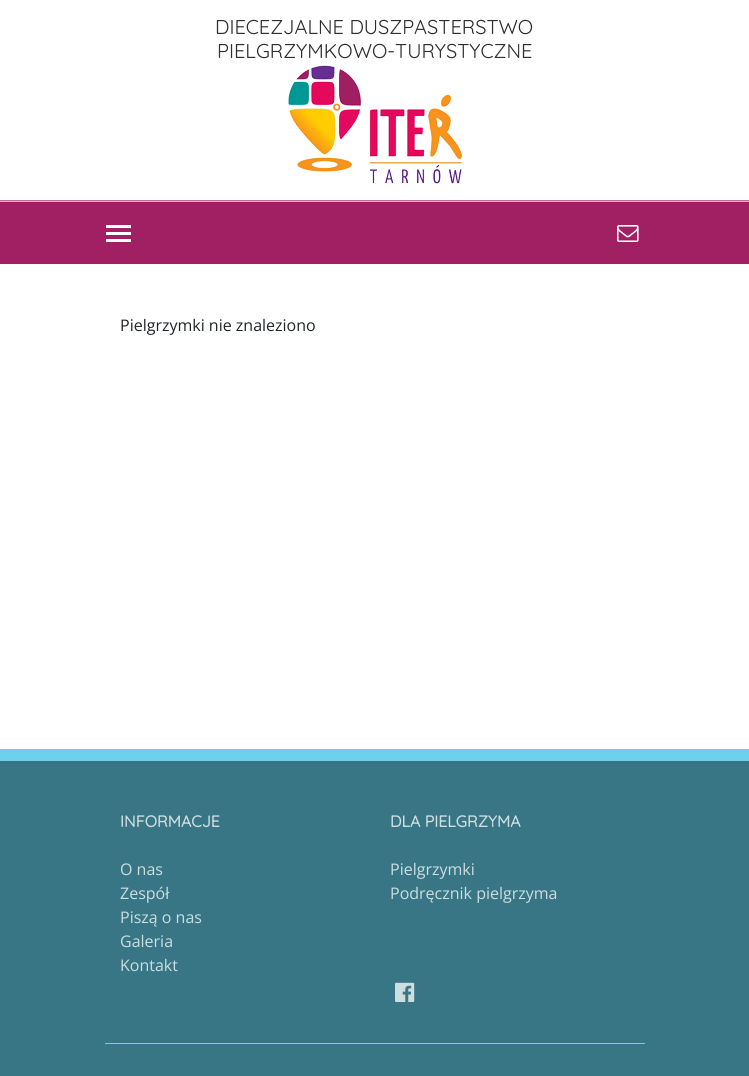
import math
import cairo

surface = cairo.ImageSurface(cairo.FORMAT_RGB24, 749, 1076)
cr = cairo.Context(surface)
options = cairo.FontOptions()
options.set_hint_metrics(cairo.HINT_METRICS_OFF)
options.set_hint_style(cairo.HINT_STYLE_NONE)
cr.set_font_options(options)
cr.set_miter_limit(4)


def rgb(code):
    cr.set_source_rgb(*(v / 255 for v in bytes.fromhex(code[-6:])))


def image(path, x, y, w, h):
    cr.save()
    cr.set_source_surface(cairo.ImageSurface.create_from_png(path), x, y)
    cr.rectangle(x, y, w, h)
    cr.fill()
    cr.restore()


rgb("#ffffff")
cr.paint()
image("img/1.png", 288, 65, 174, 119)
for x, y, w, h, color in [
    (0, 202, 749, 62, "#a02063"),
    (0, 201, 749, 1, "#deb1c9"),
    (0, 200, 749, 1, "#c16e99"),
    (106, 225, 25, 3, "#ffffff"),
    (106, 232, 25, 3, "#ffffff"),
    (106, 239, 25, 3, "#ffffff"),
]:
    rgb(color)
    cr.rectangle(x, y, w, h)
    cr.fill()
image("img/2.png", 617, 225, 22, 17)
for x, y, w, h, color in [
    (0, 761, 749, 315, "#387685"),
    (0, 749, 749, 12, "#6dd1eb"),
    (105, 1043, 540, 1, "#6dd1eb"),
]:
    rgb(color)
    cr.rectangle(x, y, w, h)
    cr.fill()
image("img/3.png", 395, 982, 20, 20)
cr.select_font_face("Quicksand Light")
cr.set_font_size(20)
rgb("#2e2e2e")
cr.move_to(215, 34)
cr.show_text("DIECEZJALNE DUSZPASTERSTWO")
cr.move_to(217, 58)
cr.show_text("PIELGRZYMKOWO-TURYSTYCZNE")
cr.select_font_face("Open Sans")
cr.set_font_size(16)
rgb("#212529")
cr.move_to(120, 331)
cr.show_text("Pielgrzymki nie znaleziono")
cr.select_font_face("Quicksand", cairo.FONT_SLANT_NORMAL, cairo.FONT_WEIGHT_BOLD)
rgb("#cddde0")
cr.move_to(120, 827)
cr.show_text("INFORMACJE")
cr.select_font_face("Open Sans")
for x, y, s in [
    (120, 875, "O nas"),
    (120, 899, "Zespół"),
    (120, 923, "Piszą o nas"),
    (120, 947, "Galeria"),
    (120, 971, "Kontakt"),
]:
    cr.move_to(x, y)
    cr.show_text(s)
cr.select_font_face("Quicksand", cairo.FONT_SLANT_NORMAL, cairo.FONT_WEIGHT_BOLD)
cr.move_to(390, 827)
cr.show_text("DLA PIELGRZYMA")
cr.select_font_face("Open Sans")
cr.move_to(390, 875)
cr.show_text("Pielgrzymki")
cr.move_to(390, 899)
cr.show_text("Podręcznik pielgrzyma")
surface.write_to_png("page.png")
